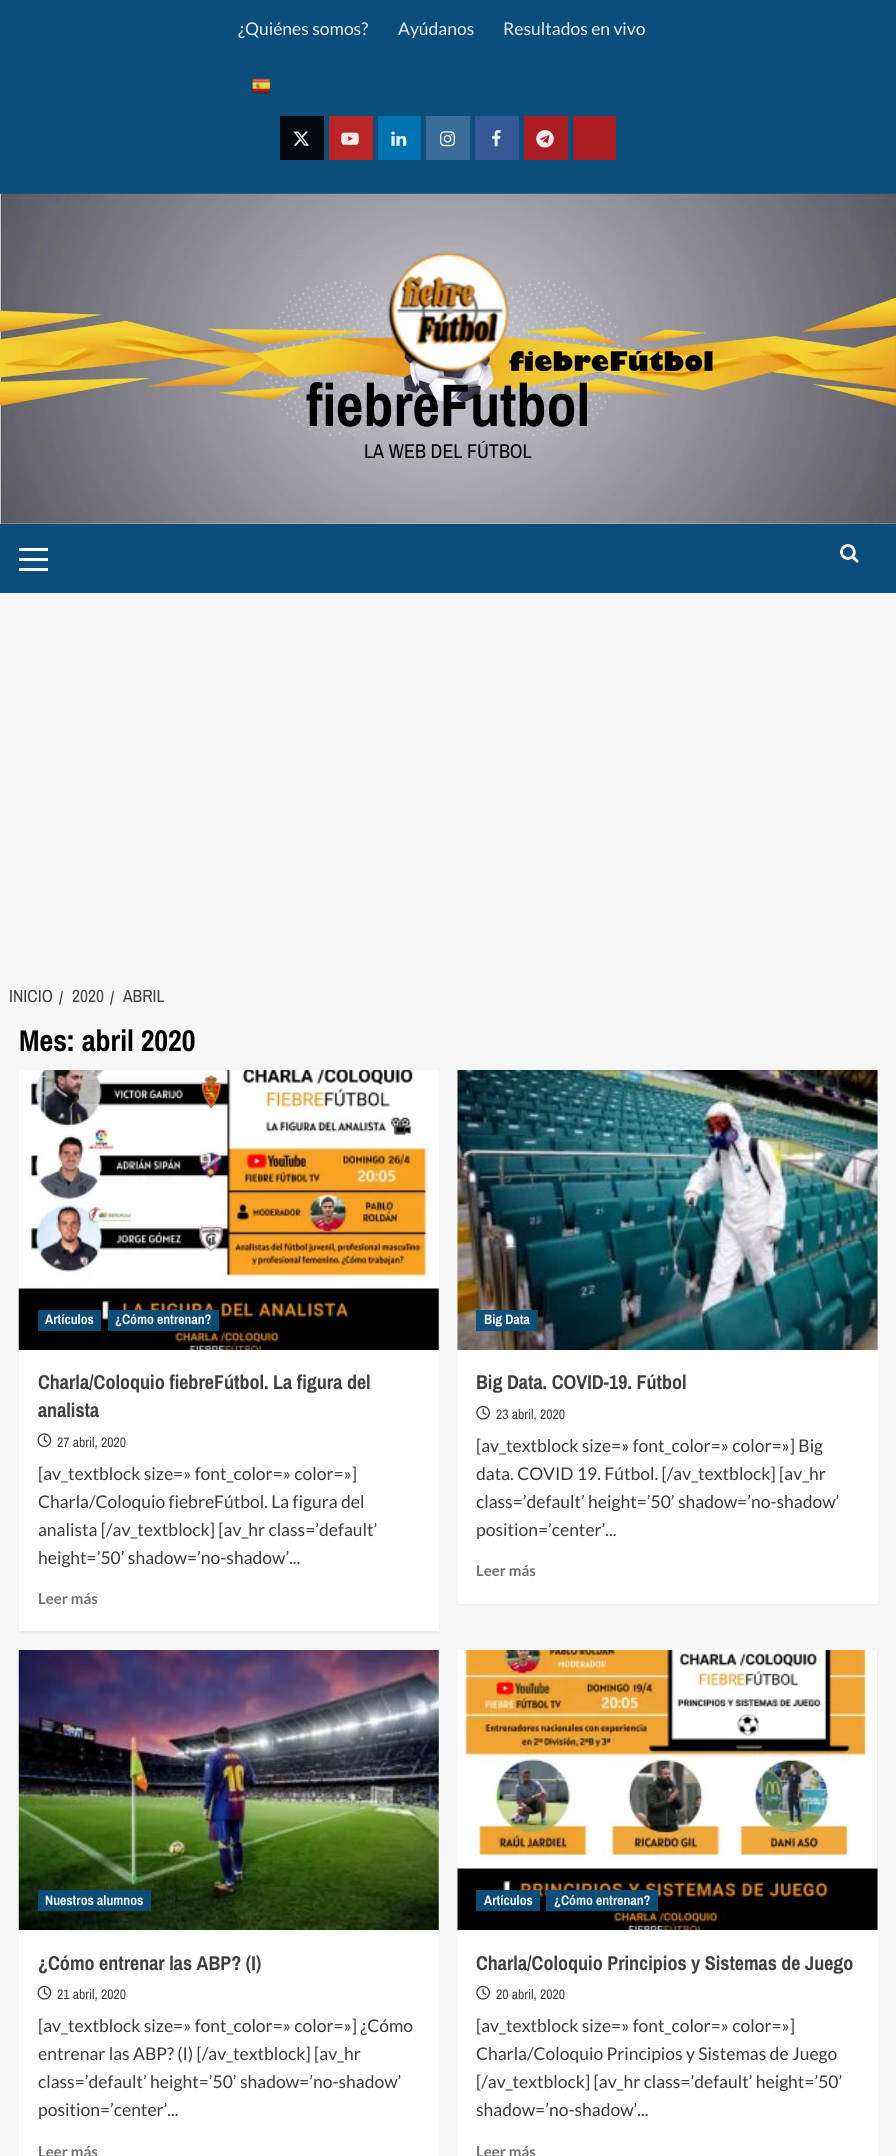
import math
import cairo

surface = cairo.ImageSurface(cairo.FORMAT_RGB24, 896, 2156)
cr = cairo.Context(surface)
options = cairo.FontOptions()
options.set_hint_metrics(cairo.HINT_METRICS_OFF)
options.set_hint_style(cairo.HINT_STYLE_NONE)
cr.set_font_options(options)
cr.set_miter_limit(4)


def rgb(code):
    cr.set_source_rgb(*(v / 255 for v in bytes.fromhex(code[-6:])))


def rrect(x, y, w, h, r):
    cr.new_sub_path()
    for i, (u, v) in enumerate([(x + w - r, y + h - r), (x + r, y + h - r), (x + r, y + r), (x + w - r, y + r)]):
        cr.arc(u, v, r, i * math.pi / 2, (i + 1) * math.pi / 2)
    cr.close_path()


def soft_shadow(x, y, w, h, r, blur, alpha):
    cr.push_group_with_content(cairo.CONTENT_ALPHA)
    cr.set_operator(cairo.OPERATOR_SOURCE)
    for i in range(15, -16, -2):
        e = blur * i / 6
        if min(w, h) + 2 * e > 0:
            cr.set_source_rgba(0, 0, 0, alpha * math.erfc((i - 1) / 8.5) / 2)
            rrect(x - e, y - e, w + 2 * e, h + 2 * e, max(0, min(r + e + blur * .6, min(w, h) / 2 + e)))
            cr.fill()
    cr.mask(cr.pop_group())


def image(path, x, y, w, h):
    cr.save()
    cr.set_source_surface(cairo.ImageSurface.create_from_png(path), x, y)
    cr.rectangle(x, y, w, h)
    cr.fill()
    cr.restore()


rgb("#f7f7f7")
cr.paint()
rgb("#0c4e7b")
cr.rectangle(0, 0, 896, 194)
cr.fill()
image("img/1.png", 251, 77, 20, 18)
rgb("#01080c")
cr.rectangle(280, 116, 44, 44)
cr.fill()
image("img/2.png", 293, 131, 16, 15)
rgb("#ba2528")
cr.rectangle(329, 116, 44, 44)
cr.fill()
image("img/3.png", 341, 132, 18, 13)
rgb("#0173af")
cr.rectangle(378, 116, 43, 44)
cr.fill()
image("img/4.png", 391, 131, 16, 15)
rgb("#3a6e98")
cr.rectangle(426, 116, 44, 44)
cr.fill()
image("img/5.png", 440, 131, 15, 16)
rgb("#365896")
cr.rectangle(475, 116, 44, 44)
cr.fill()
image("img/6.png", 492, 130, 9, 17)
rgb("#aa1e23")
cr.rectangle(524, 116, 44, 44)
cr.fill()
image("img/7.png", 536, 130, 18, 18)
cr.rectangle(573, 116, 43, 44)
cr.fill()
image("img/8.png", 0, 193, 896, 331)
image("img/9.png", 387, 251, 122, 122)
for x, y, w, h, color in [
    (0, 524, 896, 69, "#0c4e7b"),
    (19, 558, 29, 3, "#ffffff"),
    (19, 548, 29, 3, "#ffffff"),
    (19, 568, 29, 3, "#ffffff"),
]:
    rgb(color)
    cr.rectangle(x, y, w, h)
    cr.fill()
image("img/10.png", 840, 544, 19, 19)
rgb("#000000")
soft_shadow(19, 1071, 420, 562, 0, 1, 0.05)
rgb("#ffffff")
cr.rectangle(19, 1070, 420, 561)
cr.fill()
image("img/11.png", 18, 1070, 421, 280)
rgb("#0c4b76")
cr.rectangle(38, 1310, 63, 21)
cr.fill()
cr.set_source_rgba(0.047, 0.306, 0.482, 0.96)
cr.rectangle(108, 1310, 111, 21)
cr.fill()
image("img/12.png", 37, 1433, 15, 15)
rgb("#000000")
soft_shadow(458, 1071, 420, 534, 0, 1, 0.05)
rgb("#ffffff")
cr.rectangle(458, 1350, 420, 254)
cr.fill()
rgb("#d8d8d8")
cr.rectangle(877, 1070, 1, 280)
cr.fill()
image("img/13.png", 457, 1070, 421, 280)
cr.set_source_rgba(0.047, 0.306, 0.482, 0.96)
cr.rectangle(476, 1310, 62, 21)
cr.fill()
image("img/14.png", 476, 1405, 14, 15)
rgb("#ffffff")
cr.rectangle(19, 1650, 420, 506)
cr.fill()
image("img/15.png", 18, 1650, 421, 280)
cr.set_source_rgba(0.047, 0.306, 0.482, 0.96)
cr.rectangle(38, 1890, 113, 21)
cr.fill()
image("img/16.png", 37, 1985, 15, 15)
rgb("#ffffff")
cr.rectangle(458, 1930, 420, 226)
cr.fill()
rgb("#d8d8d8")
cr.rectangle(877, 1650, 1, 280)
cr.fill()
image("img/17.png", 457, 1650, 421, 280)
cr.set_source_rgba(0.047, 0.306, 0.482, 0.96)
cr.rectangle(476, 1890, 64, 21)
cr.fill()
cr.rectangle(546, 1890, 112, 21)
cr.fill()
image("img/14.png", 476, 1985, 14, 15)
cr.select_font_face("Lato")
cr.set_font_size(17.5)
rgb("#e7edf2")
for x, y, s in [
    (238, 35, "¿Quiénes somos?"),
    (398, 35, "Ayúdanos"),
    (503, 35, "Resultados en vivo"),
]:
    cr.move_to(x, y)
    cr.show_text(s)
cr.select_font_face("Archivo Narrow", cairo.FONT_SLANT_NORMAL, cairo.FONT_WEIGHT_BOLD)
cr.set_font_size(60)
rgb("#000000")
cr.move_to(306, 426)
cr.show_text("fiebreFutbol")
cr.select_font_face("Archivo Narrow")
cr.set_font_size(20)
cr.move_to(364, 458)
cr.show_text("LA WEB DEL FÚTBOL")
cr.set_font_size(17.5)
rgb("#404040")
for x, y, s in [
    (9, 1002, "INICIO"),
    (59, 1004, "/"),
    (72, 1002, "2020"),
    (110, 1004, "/"),
    (123, 1002, "ABRIL"),
]:
    cr.move_to(x, y)
    cr.show_text(s)
cr.select_font_face("Archivo Narrow", cairo.FONT_SLANT_NORMAL, cairo.FONT_WEIGHT_BOLD)
cr.set_font_size(30)
rgb("#000000")
cr.move_to(19, 1051)
cr.show_text("Mes: abril 2020")
cr.set_font_size(13.75)
rgb("#f5f5f5")
cr.move_to(45, 1324)
cr.show_text("Artículos")
cr.move_to(115, 1324)
cr.show_text("¿Cómo entrenan?")
cr.set_font_size(20)
rgb("#404040")
cr.move_to(38, 1389)
cr.show_text("Charla/Coloquio fiebreFútbol. La figura del")
cr.move_to(38, 1417)
cr.show_text("analista")
cr.select_font_face("Archivo Narrow")
cr.set_font_size(13.75)
cr.move_to(57, 1447)
cr.show_text("27 abril, 2020")
cr.select_font_face("Lato")
cr.set_font_size(17.5)
rgb("#3a3a3a")
for x, y, s in [
    (38, 1480, "[av_textblock size=» font_color=» color=»]"),
    (38, 1508, "Charla/Coloquio fiebreFútbol. La figura del"),
    (38, 1536, "analista [/av_textblock] [av_hr class=’default’"),
    (38, 1564, "height=’50’ shadow=’no-shadow’..."),
]:
    cr.move_to(x, y)
    cr.show_text(s)
cr.select_font_face("Lato", cairo.FONT_SLANT_NORMAL, cairo.FONT_WEIGHT_BOLD)
cr.set_font_size(15)
rgb("#707070")
cr.move_to(38, 1604)
cr.show_text("Leer más")
cr.select_font_face("Archivo Narrow", cairo.FONT_SLANT_NORMAL, cairo.FONT_WEIGHT_BOLD)
cr.set_font_size(13.75)
rgb("#f5f5f5")
cr.move_to(484, 1324)
cr.show_text("Big Data")
cr.set_font_size(20)
rgb("#404040")
cr.move_to(476, 1389)
cr.show_text("Big Data. COVID-19. Fútbol")
cr.select_font_face("Archivo Narrow")
cr.set_font_size(13.75)
cr.move_to(496, 1419)
cr.show_text("23 abril, 2020")
cr.select_font_face("Lato")
cr.set_font_size(17.5)
rgb("#3a3a3a")
for x, y, s in [
    (476, 1452, "[av_textblock size=» font_color=» color=»] Big"),
    (476, 1480, "data. COVID 19. Fútbol. [/av_textblock] [av_hr"),
    (476, 1508, "class=’default’ height=’50’ shadow=’no-shadow’"),
    (476, 1536, "position=’center’..."),
]:
    cr.move_to(x, y)
    cr.show_text(s)
cr.select_font_face("Lato", cairo.FONT_SLANT_NORMAL, cairo.FONT_WEIGHT_BOLD)
cr.set_font_size(15)
rgb("#707070")
cr.move_to(476, 1576)
cr.show_text("Leer más")
cr.select_font_face("Archivo Narrow", cairo.FONT_SLANT_NORMAL, cairo.FONT_WEIGHT_BOLD)
cr.set_font_size(13.75)
rgb("#f5f5f5")
cr.move_to(45, 1905)
cr.show_text("Nuestros alumnos")
cr.set_font_size(20)
rgb("#404040")
cr.move_to(38, 1970)
cr.show_text("¿Cómo entrenar las ABP? (I)")
cr.select_font_face("Archivo Narrow")
cr.set_font_size(13.75)
cr.move_to(57, 1999)
cr.show_text("21 abril, 2020")
cr.select_font_face("Lato")
cr.set_font_size(17.5)
rgb("#3a3a3a")
for x, y, s in [
    (38, 2032, "[av_textblock size=» font_color=» color=»] ¿Cómo"),
    (38, 2060, "entrenar las ABP? (I) [/av_textblock] [av_hr"),
    (38, 2088, "class=’default’ height=’50’ shadow=’no-shadow’"),
    (38, 2116, "position=’center’..."),
]:
    cr.move_to(x, y)
    cr.show_text(s)
cr.select_font_face("Lato", cairo.FONT_SLANT_NORMAL, cairo.FONT_WEIGHT_BOLD)
cr.set_font_size(15)
rgb("#707070")
cr.move_to(38, 2157)
cr.show_text("Leer más")
cr.select_font_face("Archivo Narrow", cairo.FONT_SLANT_NORMAL, cairo.FONT_WEIGHT_BOLD)
cr.set_font_size(13.75)
rgb("#f5f5f5")
cr.move_to(484, 1905)
cr.show_text("Artículos")
cr.move_to(554, 1905)
cr.show_text("¿Cómo entrenan?")
cr.set_font_size(20)
rgb("#404040")
cr.move_to(476, 1970)
cr.show_text("Charla/Coloquio Principios y Sistemas de Juego")
cr.select_font_face("Archivo Narrow")
cr.set_font_size(13.75)
cr.move_to(496, 1999)
cr.show_text("20 abril, 2020")
cr.select_font_face("Lato")
cr.set_font_size(17.5)
rgb("#3a3a3a")
for x, y, s in [
    (476, 2032, "[av_textblock size=» font_color=» color=»]"),
    (476, 2060, "Charla/Coloquio Principios y Sistemas de Juego"),
    (476, 2088, "[/av_textblock] [av_hr class=’default’ height=’50’"),
    (476, 2116, "shadow=’no-shadow’..."),
]:
    cr.move_to(x, y)
    cr.show_text(s)
cr.select_font_face("Lato", cairo.FONT_SLANT_NORMAL, cairo.FONT_WEIGHT_BOLD)
cr.set_font_size(15)
rgb("#707070")
cr.move_to(476, 2157)
cr.show_text("Leer más")
surface.write_to_png("page.png")
